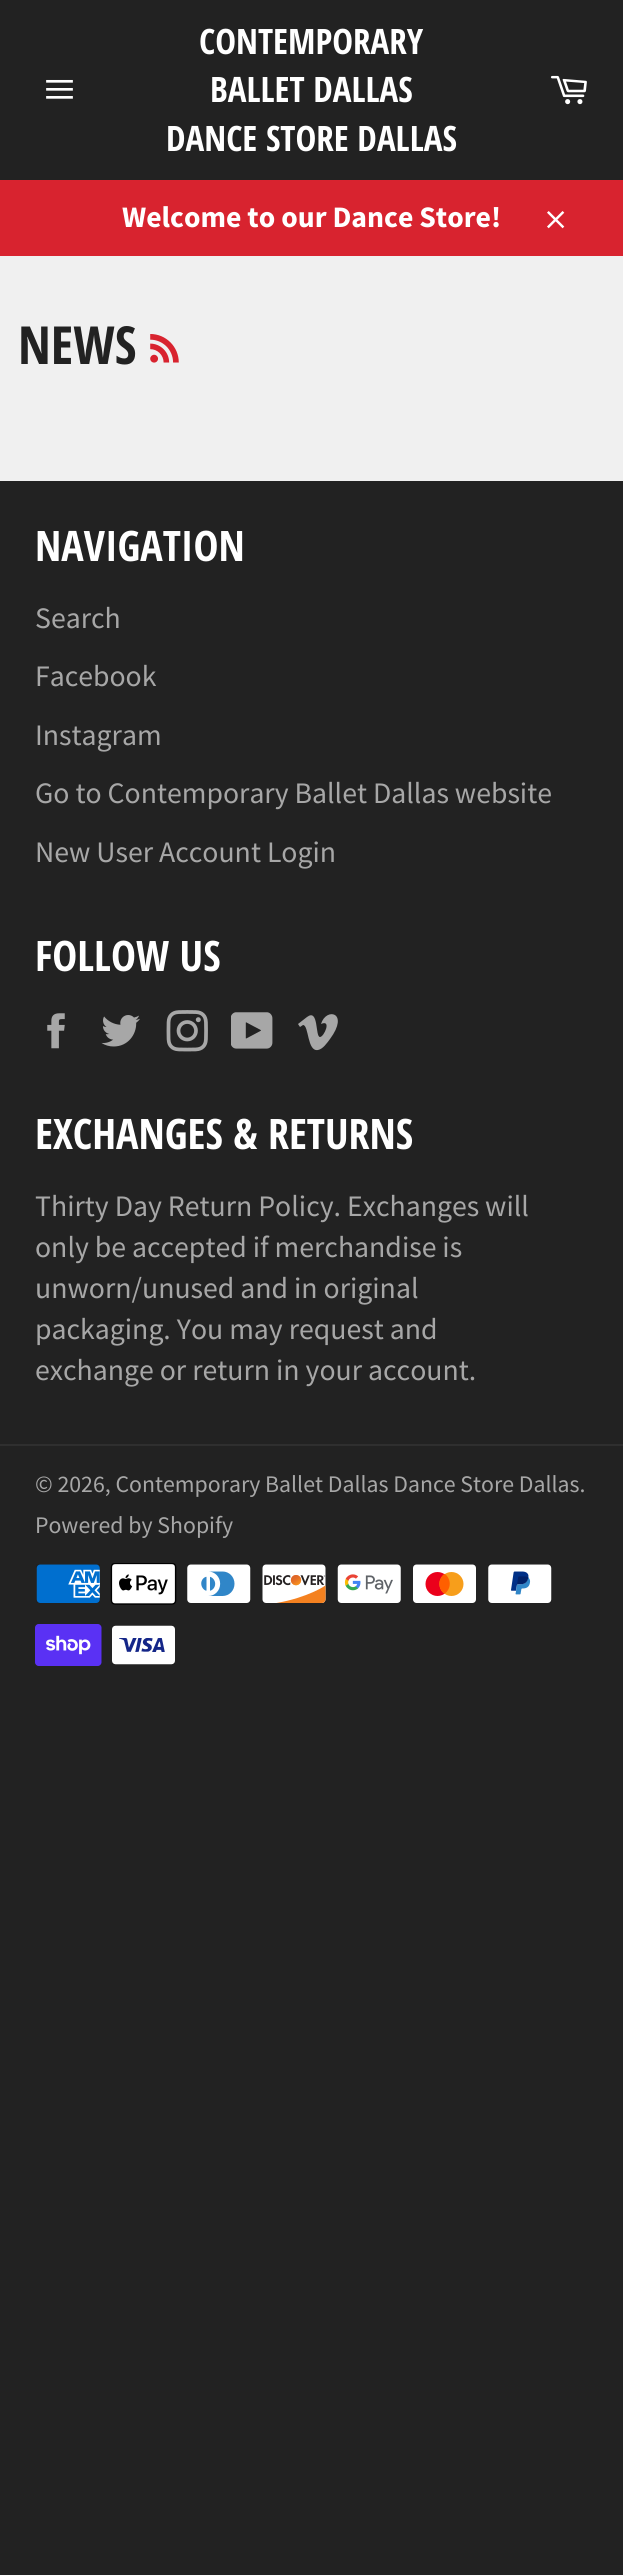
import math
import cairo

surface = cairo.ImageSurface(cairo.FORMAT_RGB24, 623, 2575)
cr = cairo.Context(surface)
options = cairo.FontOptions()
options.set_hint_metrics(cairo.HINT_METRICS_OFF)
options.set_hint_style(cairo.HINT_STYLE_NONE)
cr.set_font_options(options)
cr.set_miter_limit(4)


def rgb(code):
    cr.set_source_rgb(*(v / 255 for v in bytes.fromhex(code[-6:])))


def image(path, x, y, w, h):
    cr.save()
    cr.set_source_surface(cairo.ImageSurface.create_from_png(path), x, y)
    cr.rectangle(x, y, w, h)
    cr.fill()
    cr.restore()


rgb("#222222")
cr.paint()
rgb("#f0f0f0")
cr.rectangle(0, 256, 623, 225)
cr.fill()
image("img/1.png", 46, 79, 27, 20)
image("img/2.png", 550, 75, 37, 30)
rgb("#d8232f")
cr.rectangle(0, 180, 623, 76)
cr.fill()
image("img/3.png", 547, 211, 18, 18)
image("img/4.png", 150, 334, 29, 29)
image("img/5.png", 47, 1013, 18, 36)
image("img/6.png", 101, 1015, 39, 32)
image("img/7.png", 166, 1010, 42, 42)
image("img/8.png", 231, 1012, 42, 37)
rgb("#a7a7a7")
cr.new_path()
cr.move_to(298, 1024)
cr.line_to(300, 1027)
cr.line_to(303, 1025)
cr.curve_to(309, 1025, 307, 1052, 318, 1050)
cr.curve_to(323, 1049, 327, 1043, 330, 1039)
cr.curve_to(350, 1012, 326, 1007, 321, 1024)
cr.curve_to(332, 1019, 324, 1037, 320, 1037)
cr.curve_to(315, 1037, 319, 1008, 307, 1017)
cr.close_path()
cr.fill()
rgb("#2f2f2f")
cr.rectangle(0, 1444, 623, 2)
cr.fill()
image("img/9.png", 36, 1564, 64, 39)
image("img/10.png", 110, 1563, 67, 42)
image("img/11.png", 187, 1564, 64, 39)
image("img/12.png", 262, 1564, 64, 39)
image("img/13.png", 337, 1564, 64, 39)
image("img/14.png", 413, 1564, 63, 39)
image("img/15.png", 488, 1564, 64, 39)
image("img/16.png", 35, 1624, 67, 42)
image("img/17.png", 112, 1625, 63, 40)
cr.select_font_face("Open Sans Condensed", cairo.FONT_SLANT_NORMAL, cairo.FONT_WEIGHT_BOLD)
cr.set_font_size(35)
rgb("#ffffff")
for x, y, s in [
    (199, 54, "CONTEMPORARY"),
    (210, 102, "BALLET DALLAS"),
    (166, 151, "DANCE STORE DALLAS"),
]:
    cr.move_to(x, y)
    cr.show_text(s)
cr.select_font_face("Source Sans Pro", cairo.FONT_SLANT_NORMAL, cairo.FONT_WEIGHT_BOLD)
cr.set_font_size(29.75)
cr.move_to(122, 227)
cr.show_text("Welcome to our Dance Store!")
cr.select_font_face("Open Sans Condensed", cairo.FONT_SLANT_NORMAL, cairo.FONT_WEIGHT_BOLD)
cr.set_font_size(52.5)
rgb("#222222")
cr.move_to(18, 364)
cr.show_text("NEWS")
cr.set_font_size(42)
rgb("#ffffff")
cr.move_to(35, 561)
cr.show_text("NAVIGATION")
cr.select_font_face("Source Sans Pro")
cr.set_font_size(29.75)
rgb("#a7a7a7")
for x, y, s in [
    (35, 628, "Search"),
    (35, 686, "Facebook"),
    (35, 745, "Instagram"),
    (35, 803, "Go to Contemporary Ballet Dallas website"),
    (35, 862, "New User Account Login"),
]:
    cr.move_to(x, y)
    cr.show_text(s)
cr.select_font_face("Open Sans Condensed", cairo.FONT_SLANT_NORMAL, cairo.FONT_WEIGHT_BOLD)
cr.set_font_size(42)
rgb("#ffffff")
cr.move_to(35, 971)
cr.show_text("FOLLOW US")
cr.move_to(35, 1149)
cr.show_text("EXCHANGES & RETURNS")
cr.select_font_face("Source Sans Pro")
cr.set_font_size(29.75)
rgb("#a7a7a7")
for x, y, s in [
    (35, 1216, "Thirty Day Return Policy. Exchanges will"),
    (35, 1257, "only be accepted if merchandise is"),
    (35, 1298, "unworn/unused and in original"),
    (35, 1339, "packaging. You may request and"),
    (35, 1380, "exchange or return in your account."),
]:
    cr.move_to(x, y)
    cr.show_text(s)
cr.set_font_size(23.8)
cr.move_to(35, 1492)
cr.show_text("© 2026, Contemporary Ballet Dallas Dance Store Dallas.")
cr.move_to(35, 1533)
cr.show_text("Powered by Shopify")
surface.write_to_png("page.png")
